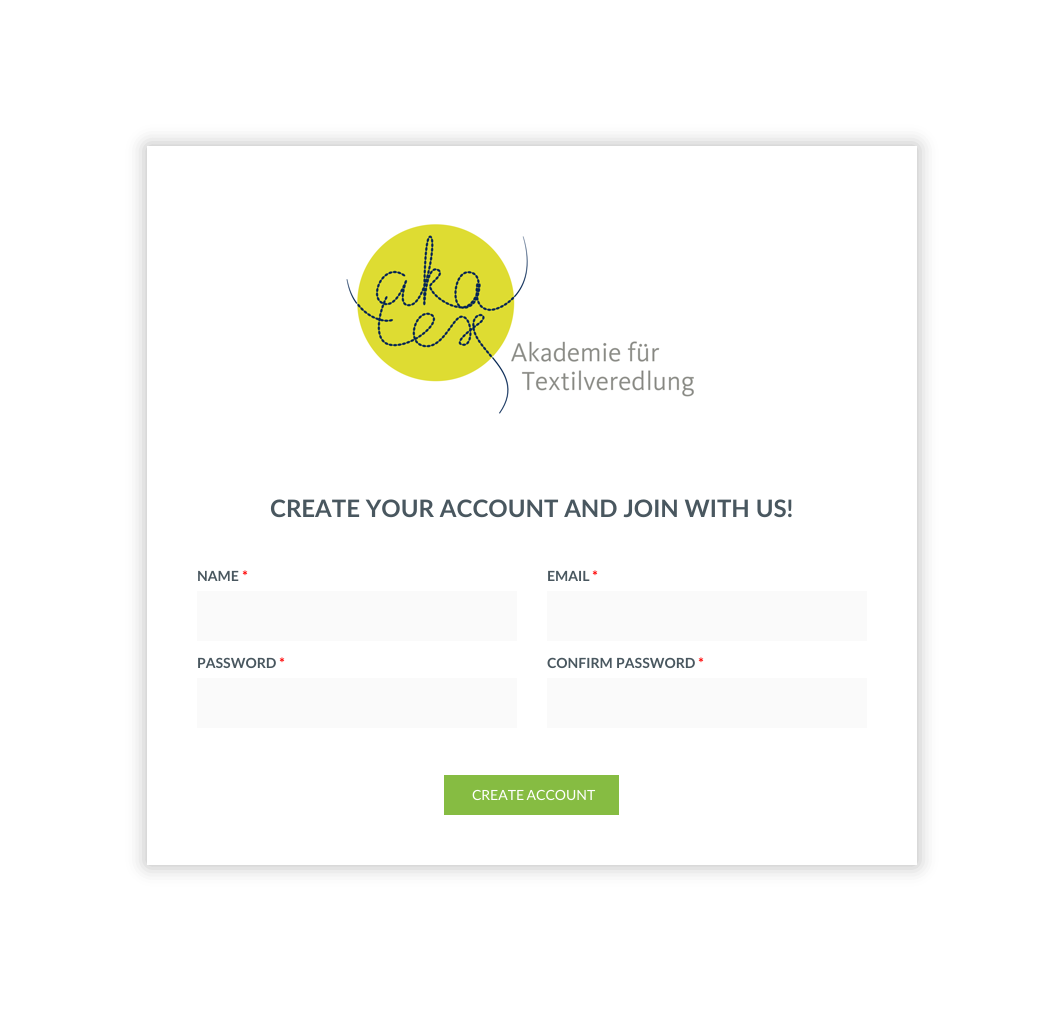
import math
import cairo

surface = cairo.ImageSurface(cairo.FORMAT_RGB24, 1063, 1011)
cr = cairo.Context(surface)
options = cairo.FontOptions()
options.set_hint_metrics(cairo.HINT_METRICS_OFF)
options.set_hint_style(cairo.HINT_STYLE_NONE)
cr.set_font_options(options)
cr.set_miter_limit(4)


def rgb(code):
    cr.set_source_rgb(*(v / 255 for v in bytes.fromhex(code[-6:])))


def tracked(x, y, s, letter, word):
    cr.move_to(x, y)
    for ch in s:
        cr.show_text(ch)
        cr.rel_move_to(letter + word * (ch == ' '), 0)


def rrect(x, y, w, h, r):
    cr.new_sub_path()
    for i, (u, v) in enumerate([(x + w - r, y + h - r), (x + r, y + h - r), (x + r, y + r), (x + w - r, y + r)]):
        cr.arc(u, v, r, i * math.pi / 2, (i + 1) * math.pi / 2)
    cr.close_path()


def soft_shadow(x, y, w, h, r, blur, alpha):
    cr.push_group_with_content(cairo.CONTENT_ALPHA)
    cr.set_operator(cairo.OPERATOR_SOURCE)
    for i in range(15, -16, -2):
        e = blur * i / 6
        if min(w, h) + 2 * e > 0:
            cr.set_source_rgba(0, 0, 0, alpha * math.erfc((i - 1) / 8.5) / 2)
            rrect(x - e, y - e, w + 2 * e, h + 2 * e, max(0, min(r + e + blur * .6, min(w, h) / 2 + e)))
            cr.fill()
    cr.mask(cr.pop_group())


def image(path, x, y, w, h):
    cr.save()
    cr.set_source_surface(cairo.ImageSurface.create_from_png(path), x, y)
    cr.rectangle(x, y, w, h)
    cr.fill()
    cr.restore()


rgb("#ffffff")
cr.paint()
cr.save()
cr.set_fill_rule(cairo.FILL_RULE_EVEN_ODD)
cr.new_path()
cr.move_to(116, 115)
cr.line_to(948, 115)
cr.line_to(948, 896)
cr.line_to(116, 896)
cr.close_path()
cr.move_to(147, 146)
cr.line_to(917, 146)
cr.line_to(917, 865)
cr.line_to(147, 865)
cr.close_path()
cr.clip()
rgb("#000000")
soft_shadow(147, 146, 770, 719, 0, 10, 0.3)
cr.restore()
image("img/1.png", 346, 224, 348, 190)
for x, y, w, h, color in [
    (197, 591, 320, 50, "#fafafa"),
    (547, 591, 320, 50, "#fafafa"),
    (197, 678, 320, 50, "#fafafa"),
    (547, 678, 320, 50, "#fafafa"),
    (444, 775, 175, 40, "#86bc42"),
]:
    rgb(color)
    cr.rectangle(x, y, w, h)
    cr.fill()
cr.select_font_face("Lato", cairo.FONT_SLANT_NORMAL, cairo.FONT_WEIGHT_BOLD)
cr.set_font_size(24)
rgb("#49575f")
cr.move_to(270, 517)
cr.show_text("CREATE YOUR ACCOUNT AND JOIN WITH US!")
cr.set_font_size(14)
cr.move_to(197, 581)
cr.show_text("NAME")
rgb("#ff0000")
cr.move_to(242, 581)
cr.show_text("*")
rgb("#49575f")
cr.move_to(547, 581)
cr.show_text("EMAIL")
rgb("#ff0000")
cr.move_to(592, 581)
cr.show_text("*")
rgb("#49575f")
cr.move_to(197, 668)
cr.show_text("PASSWORD")
rgb("#ff0000")
cr.move_to(279, 668)
cr.show_text("*")
rgb("#49575f")
cr.move_to(547, 668)
cr.show_text("CONFIRM PASSWORD")
rgb("#ff0000")
cr.move_to(698, 668)
cr.show_text("*")
cr.select_font_face("Lato")
rgb("#ffffff")
tracked(472, 800, "CREATE ACCOUNT", 0, -1)
surface.write_to_png("page.png")
